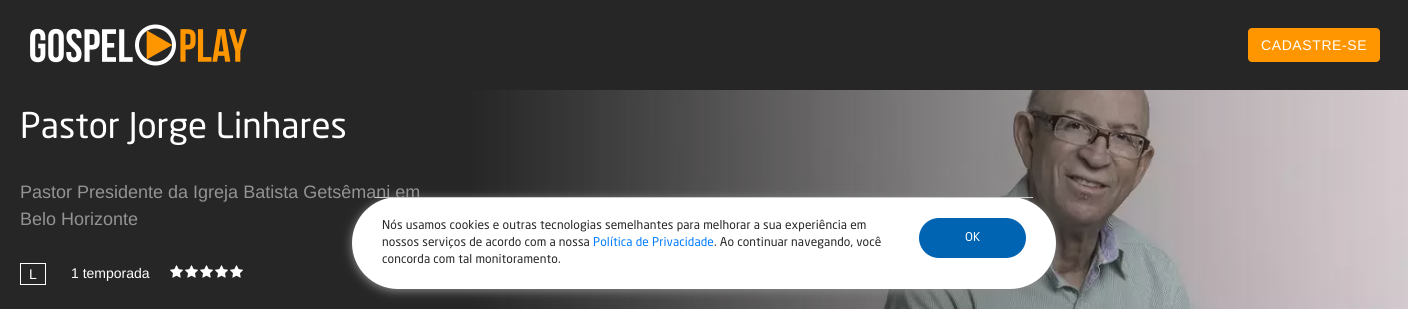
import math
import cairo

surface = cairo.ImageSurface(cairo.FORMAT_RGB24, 1408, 309)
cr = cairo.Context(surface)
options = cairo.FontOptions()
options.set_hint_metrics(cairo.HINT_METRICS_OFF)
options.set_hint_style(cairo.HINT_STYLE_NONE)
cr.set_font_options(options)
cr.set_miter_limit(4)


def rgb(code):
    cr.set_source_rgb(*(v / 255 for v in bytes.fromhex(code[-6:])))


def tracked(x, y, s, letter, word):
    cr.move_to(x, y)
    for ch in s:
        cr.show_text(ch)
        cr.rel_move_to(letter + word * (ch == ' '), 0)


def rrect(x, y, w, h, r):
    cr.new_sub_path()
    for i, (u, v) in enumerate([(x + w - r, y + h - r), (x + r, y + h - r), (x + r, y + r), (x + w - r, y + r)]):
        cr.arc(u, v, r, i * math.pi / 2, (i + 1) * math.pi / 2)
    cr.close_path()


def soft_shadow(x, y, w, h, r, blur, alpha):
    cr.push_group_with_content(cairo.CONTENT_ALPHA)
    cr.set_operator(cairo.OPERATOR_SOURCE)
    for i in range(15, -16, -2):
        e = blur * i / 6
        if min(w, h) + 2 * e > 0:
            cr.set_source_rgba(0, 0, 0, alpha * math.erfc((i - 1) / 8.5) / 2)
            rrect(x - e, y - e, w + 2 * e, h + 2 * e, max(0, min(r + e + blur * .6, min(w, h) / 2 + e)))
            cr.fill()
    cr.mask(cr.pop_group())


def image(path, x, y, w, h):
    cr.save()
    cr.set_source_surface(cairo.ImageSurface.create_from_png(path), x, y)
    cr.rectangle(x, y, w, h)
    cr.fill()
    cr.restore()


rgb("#262626")
cr.paint()
image("img/1.png", 30, 24, 217, 42)
rgb("#ff9600")
rrect(1248, 28, 132, 34, 4)
cr.fill()
cr.rectangle(20.5, 263.5, 25, 21)
rgb("#ffffff")
cr.set_line_width(1)
cr.stroke()
image("img/2.png", 170, 265, 13, 13)
image("img/2.png", 185, 265, 13, 13)
image("img/2.png", 200, 265, 13, 13)
image("img/2.png", 215, 265, 13, 13)
image("img/2.png", 230, 265, 13, 13)
image("img/3.png", 469, 90, 939, 219)
rgb("#888888")
soft_shadow(352, 199, 704, 92, 46, 5, 1)
cr.select_font_face("Liberation Sans")
cr.set_font_size(14)
rgb("#ffffff")
tracked(1261, 50, "CADASTRE-SE", 0.6, 0)
cr.select_font_face("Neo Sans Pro")
cr.set_font_size(35)
cr.move_to(20, 138)
cr.show_text("Pastor Jorge Linhares")
cr.select_font_face("Liberation Sans")
cr.set_font_size(18)
rgb("#939393")
cr.move_to(20, 198)
cr.show_text("Pastor Presidente da Igreja Batista Getsêmani em")
cr.move_to(20, 225)
cr.show_text("Belo Horizonte")
cr.set_font_size(14)
rgb("#ffffff")
cr.move_to(29, 279)
cr.show_text("L")
cr.move_to(71, 278)
cr.show_text("1 temporada")
rrect(352, 197, 704, 92, 46)
cr.fill()
rgb("#cccccc")
cr.rectangle(375, 197, 658, 1)
cr.fill()
cr.select_font_face("Neo Sans Pro")
cr.set_font_size(12)
rgb("#262626")
tracked(382, 229, "Nós usamos cookies e outras tecnologias semelhantes para melhorar a sua experiência em", 0.1, 0)
tracked(382, 246, "nossos serviços de acordo com a nossa", 0.1, 0)
rgb("#007bff")
tracked(593, 246, "Política de Privacidade", 0.1, 0)
rgb("#262626")
tracked(714, 246, ". Ao continuar navegando, você", 0.1, 0)
tracked(382, 263, "concorda com tal monitoramento.", 0.1, 0)
rgb("#0064b3")
rrect(919, 218, 107, 40, 20)
cr.fill()
rgb("#ffffff")
cr.move_to(965, 241)
cr.show_text("OK")
surface.write_to_png("page.png")
